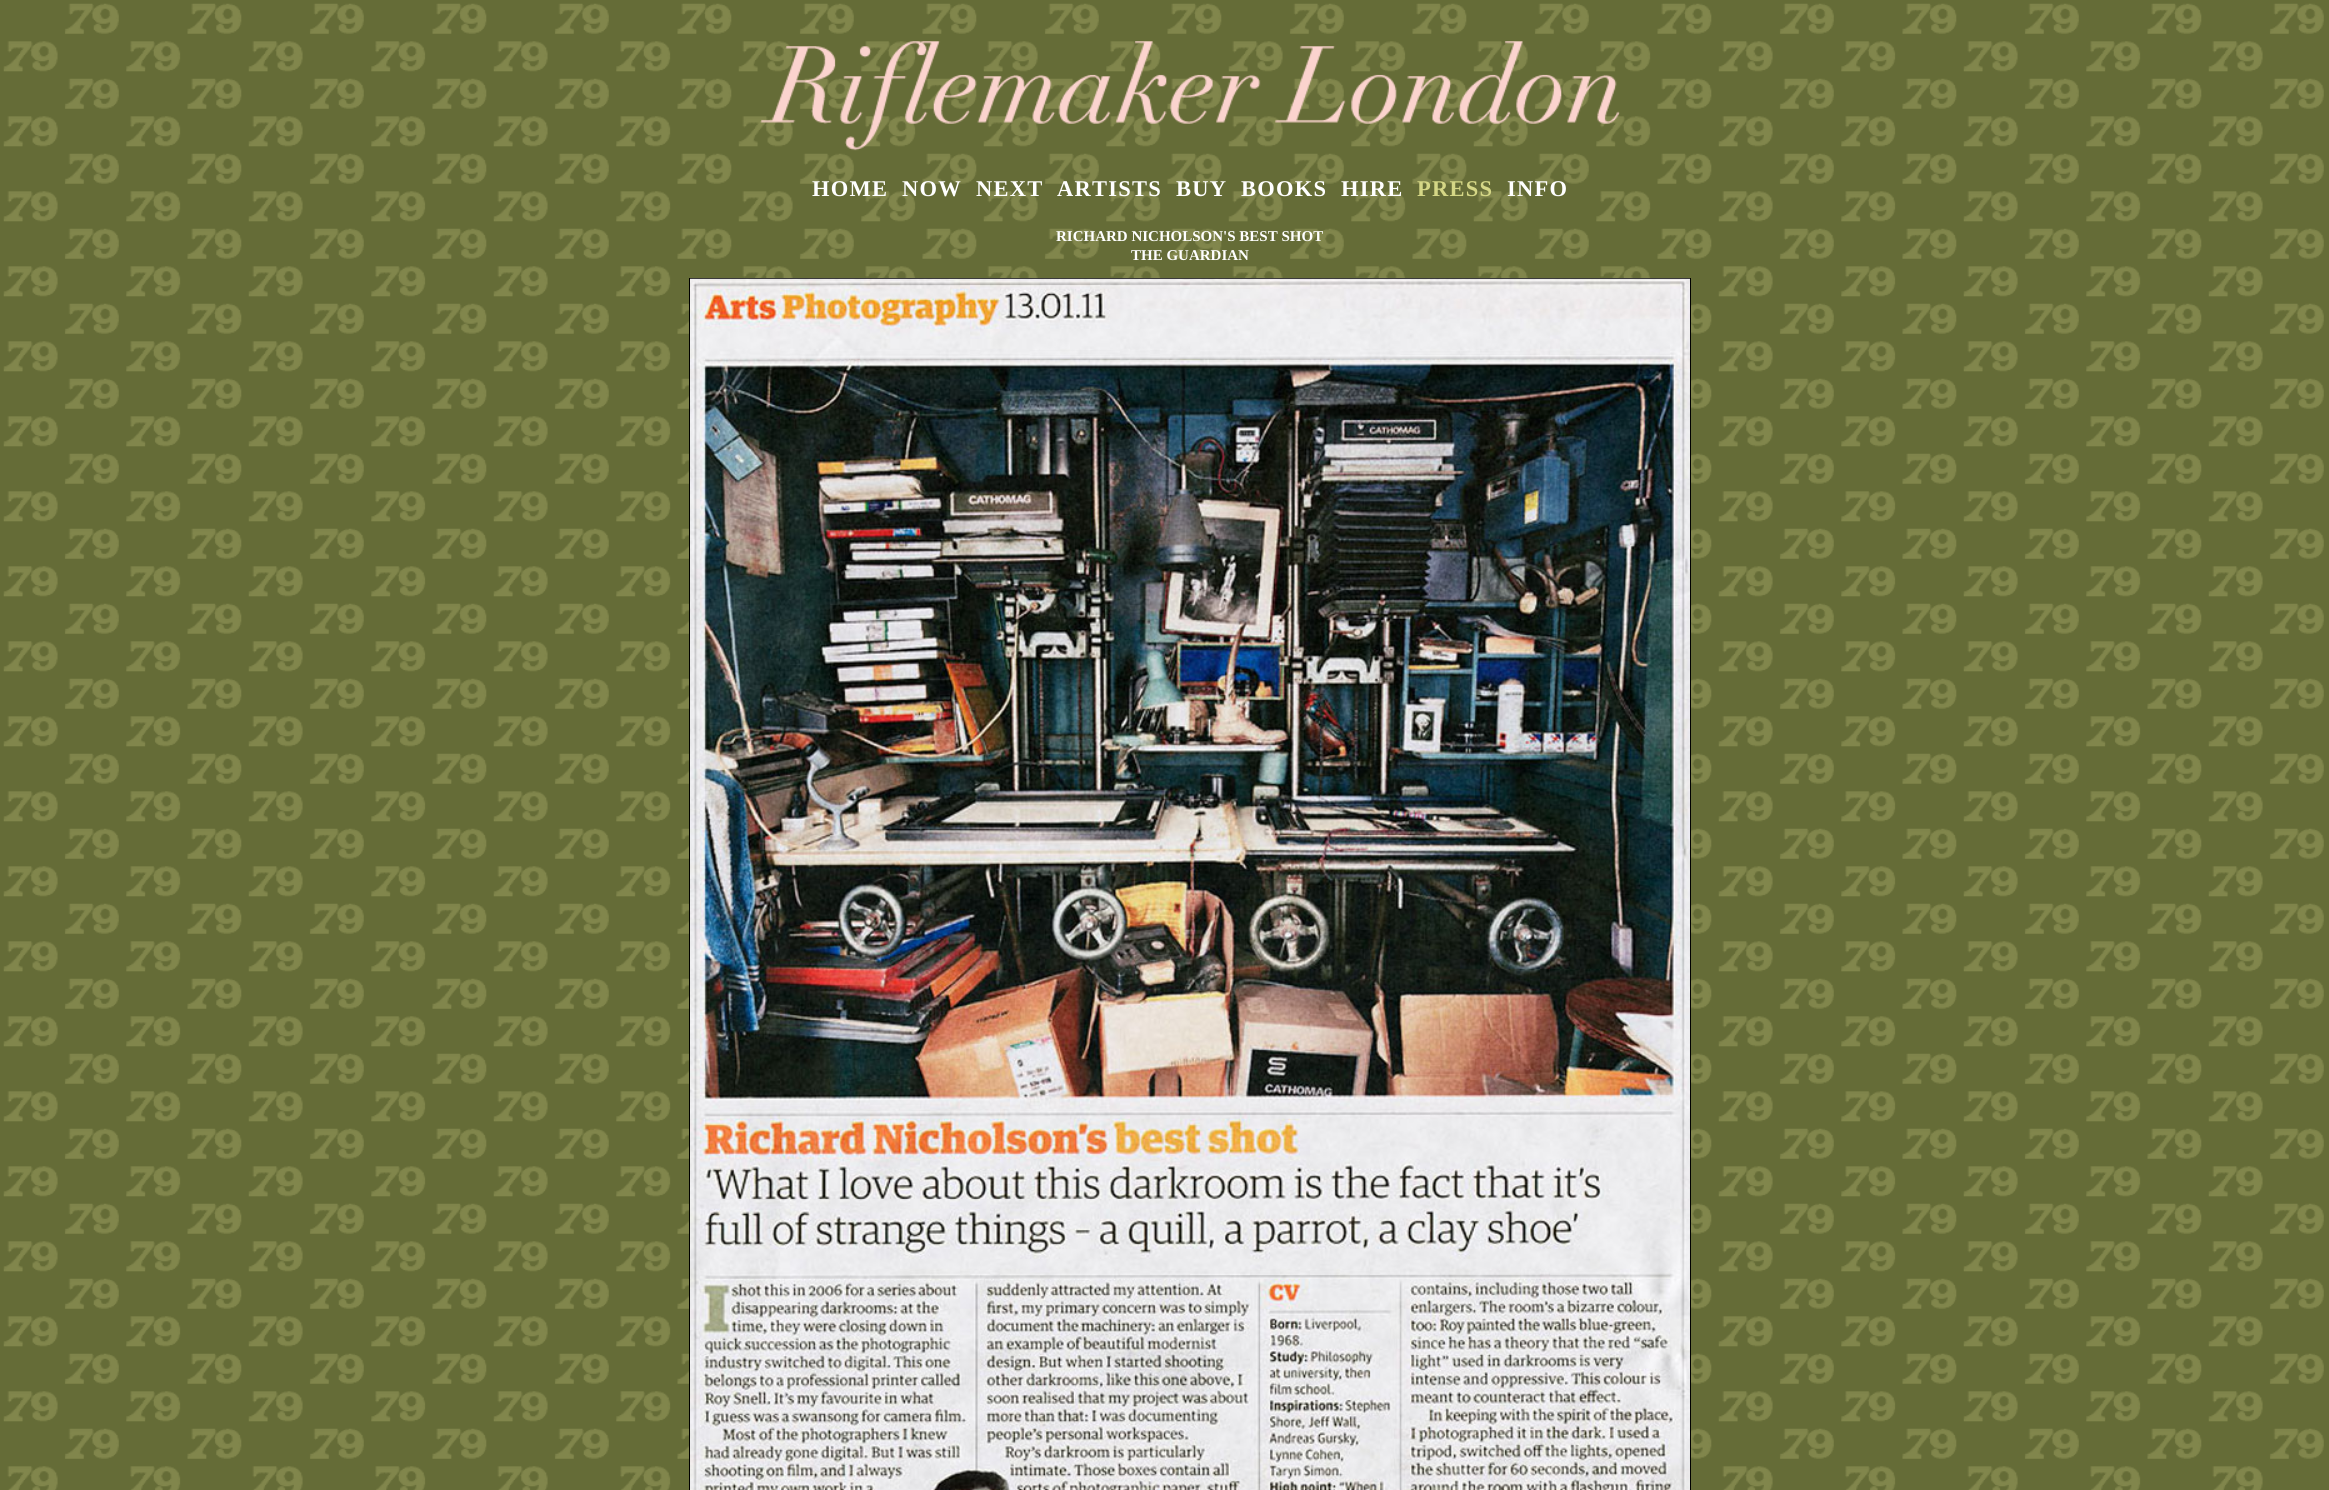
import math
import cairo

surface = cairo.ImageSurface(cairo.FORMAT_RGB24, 2329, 1490)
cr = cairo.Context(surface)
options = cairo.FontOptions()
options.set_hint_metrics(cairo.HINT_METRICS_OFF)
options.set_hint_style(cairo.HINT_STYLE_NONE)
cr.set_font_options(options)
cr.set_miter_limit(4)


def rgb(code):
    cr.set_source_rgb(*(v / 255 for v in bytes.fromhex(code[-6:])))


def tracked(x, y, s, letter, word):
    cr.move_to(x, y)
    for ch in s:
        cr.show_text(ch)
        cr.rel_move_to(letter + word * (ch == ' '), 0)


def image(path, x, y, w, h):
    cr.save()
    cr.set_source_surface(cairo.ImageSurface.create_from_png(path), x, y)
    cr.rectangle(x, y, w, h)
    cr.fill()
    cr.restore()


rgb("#ffffff")
cr.paint()
image("img/1.png", 0, 0, 2329, 1490)
image("img/2.png", 760, 41, 860, 110)
cr.rectangle(689.5, 278.5, 1001, 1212)
rgb("#000000")
cr.set_line_width(1)
cr.stroke()
image("img/3.png", 690, 278, 1000, 1212)
cr.select_font_face("Liberation Serif", cairo.FONT_SLANT_NORMAL, cairo.FONT_WEIGHT_BOLD)
cr.set_font_size(22.5)
rgb("#ffffff")
for x, y, s in [
    (812, 196, "HOME"),
    (902, 196, "NOW"),
    (976, 196, "NEXT"),
    (1057, 196, "ARTISTS"),
    (1176, 196, "BUY"),
    (1241, 196, "BOOKS"),
    (1341, 196, "HIRE"),
]:
    tracked(x, y, s, 1.25, 0)
rgb("#d5d786")
tracked(1417, 196, "PRESS", 1.25, 0)
rgb("#ffffff")
tracked(1507, 196, "INFO", 1.25, 0)
cr.set_font_size(15)
cr.move_to(1056, 241)
cr.show_text("RICHARD NICHOLSON'S BEST SHOT")
cr.move_to(1131, 260)
cr.show_text("THE GUARDIAN")
surface.write_to_png("page.png")
